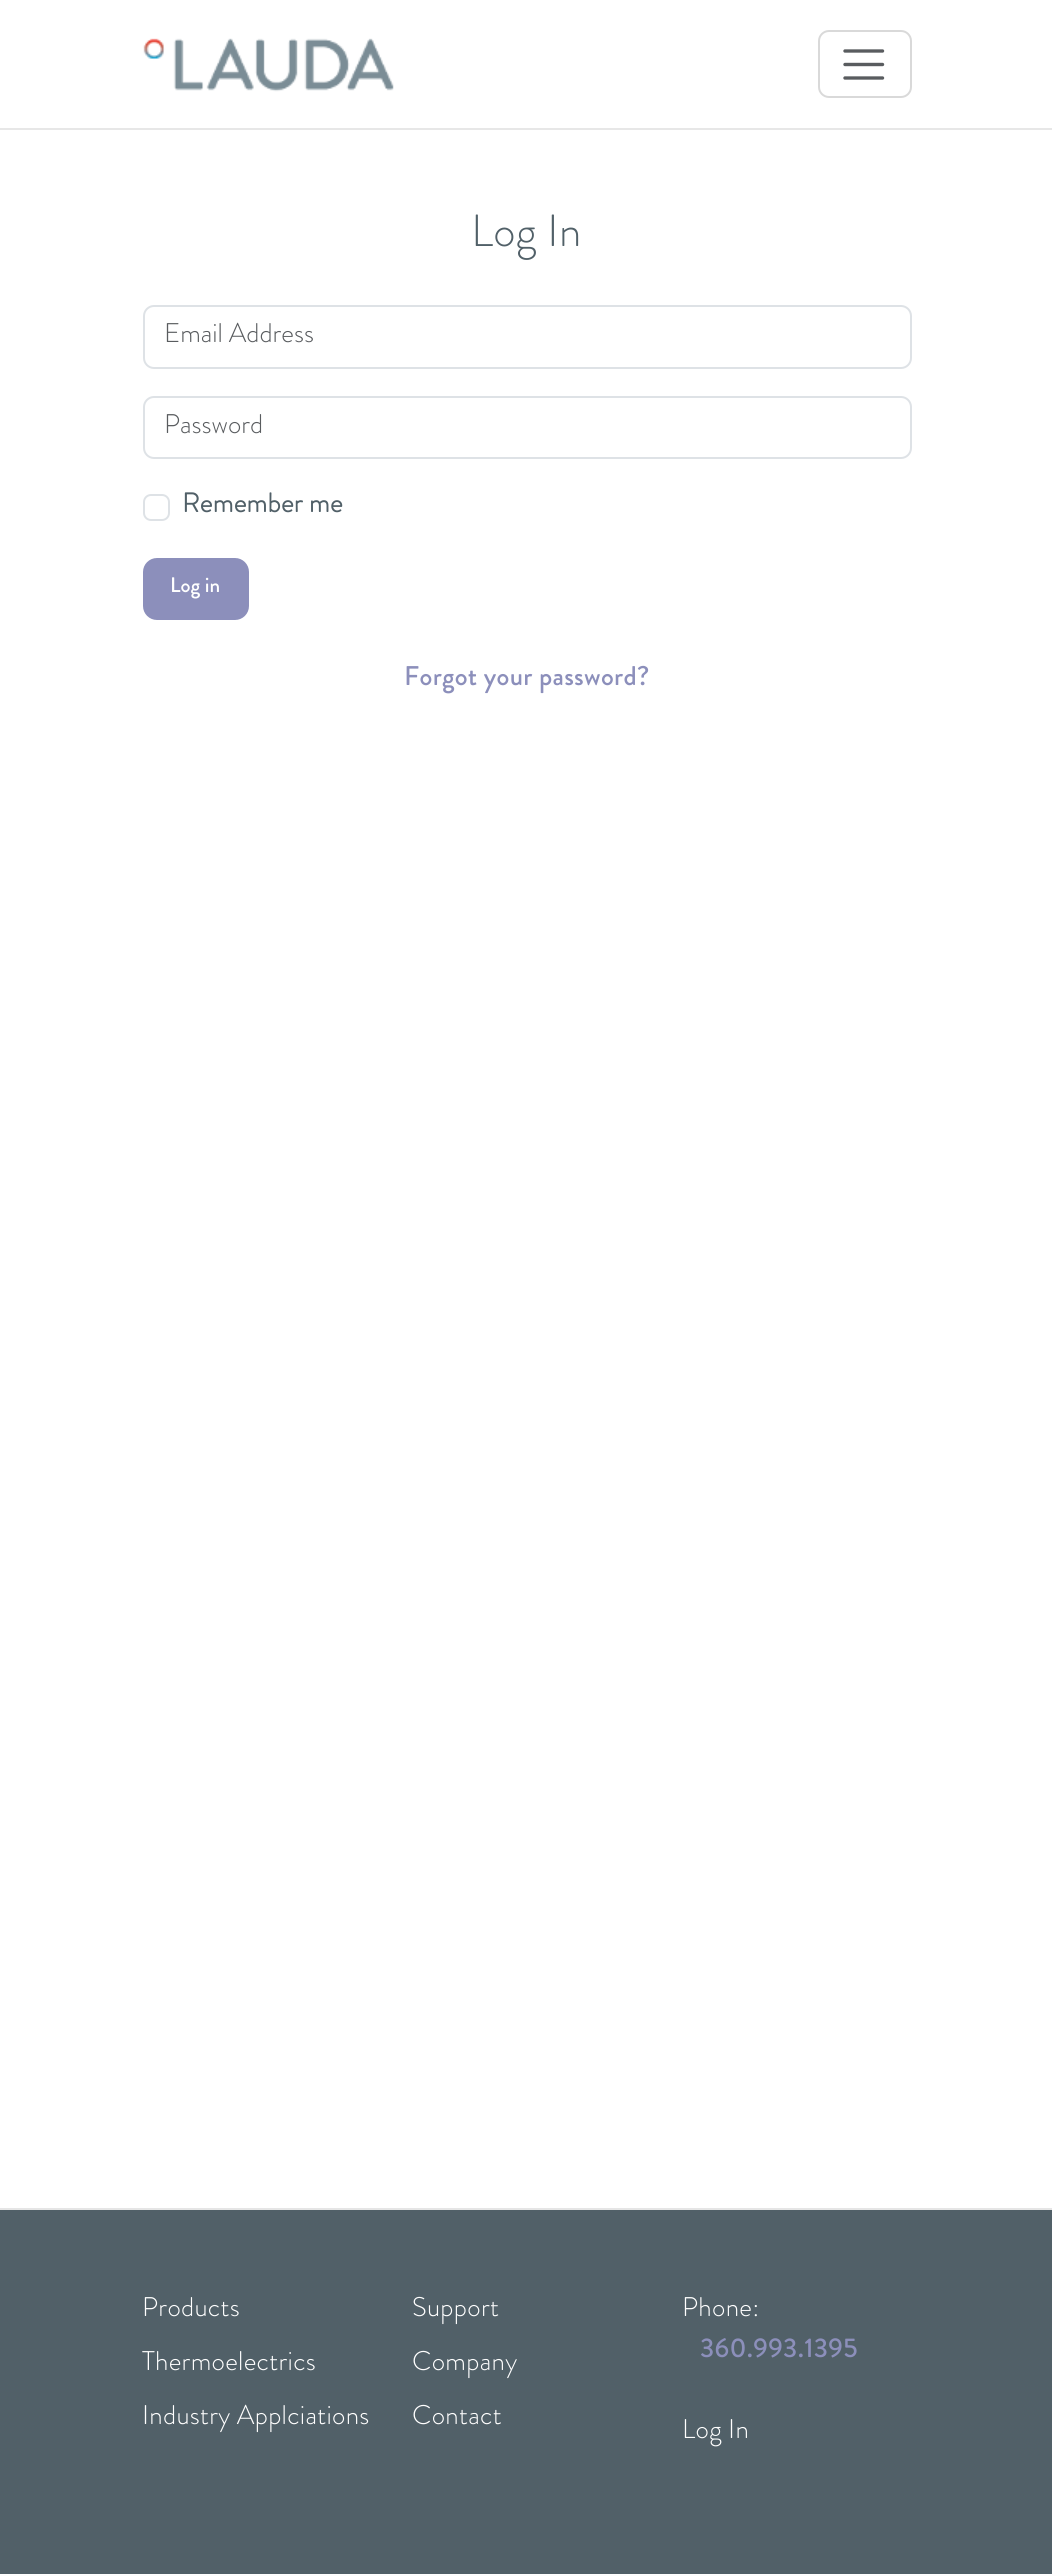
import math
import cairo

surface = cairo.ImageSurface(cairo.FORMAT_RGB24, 1052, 2574)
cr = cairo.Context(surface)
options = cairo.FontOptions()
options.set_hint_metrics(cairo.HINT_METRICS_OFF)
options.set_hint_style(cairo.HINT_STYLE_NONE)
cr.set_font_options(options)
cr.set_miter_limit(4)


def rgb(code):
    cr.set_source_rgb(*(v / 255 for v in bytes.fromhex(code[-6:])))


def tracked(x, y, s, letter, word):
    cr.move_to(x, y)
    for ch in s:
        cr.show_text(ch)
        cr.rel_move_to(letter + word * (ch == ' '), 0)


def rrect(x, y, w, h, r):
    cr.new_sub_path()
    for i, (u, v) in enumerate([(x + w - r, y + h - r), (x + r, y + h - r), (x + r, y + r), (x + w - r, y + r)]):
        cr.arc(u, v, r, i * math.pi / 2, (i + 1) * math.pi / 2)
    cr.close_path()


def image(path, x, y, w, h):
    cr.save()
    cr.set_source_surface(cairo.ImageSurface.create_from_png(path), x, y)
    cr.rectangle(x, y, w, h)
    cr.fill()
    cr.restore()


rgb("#ffffff")
cr.paint()
rgb("#e7e7e7")
cr.rectangle(0, 128, 1052, 2)
cr.fill()
image("img/1.png", 143, 38, 251, 54)
rrect(819, 31, 92, 66, 10)
rgb("#d9d9d9")
cr.stroke()
cr.new_path()
cr.move_to(845, 51)
cr.line_to(882.5, 51)
cr.move_to(845, 64.5)
cr.line_to(882.5, 64.5)
cr.move_to(845, 78)
cr.line_to(882.5, 78)
rgb("#595c5f")
cr.set_line_width(3.4)
cr.set_line_cap(cairo.LINE_CAP_ROUND)
cr.stroke()
rrect(144, 306, 767, 62, 10)
rgb("#dee2e6")
cr.set_line_width(2)
cr.set_line_cap(cairo.LINE_CAP_BUTT)
cr.stroke()
rrect(144, 397, 767, 61, 10)
cr.stroke()
rrect(144, 495, 25, 25, 7)
cr.stroke()
rgb("#8c8fbb")
rrect(144, 559, 104, 60, 13)
cr.fill_preserve()
cr.stroke()
rgb("#516068")
cr.rectangle(0, 2210, 1052, 364)
cr.fill()
rgb("#e5e5e5")
cr.rectangle(0, 2208, 1052, 2)
cr.fill()
cr.select_font_face("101")
cr.set_font_size(45)
rgb("#516068")
tracked(471, 246, "Log In", 0.3, 0)
cr.set_font_size(27)
rgb("#595c5f")
cr.move_to(164, 342)
cr.show_text("Email Address")
cr.move_to(164, 433)
cr.show_text("Password")
cr.select_font_face("101", cairo.FONT_SLANT_NORMAL, cairo.FONT_WEIGHT_BOLD)
rgb("#516068")
tracked(182, 512, "Remember me", 0.3, 0)
cr.select_font_face("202")
cr.set_font_size(21)
rgb("#ffffff")
cr.move_to(170, 592)
cr.show_text("Log in")
cr.set_font_size(27)
rgb("#8c8fbb")
tracked(404, 685, "Forgot your password?", 0.3, 0)
cr.select_font_face("101")
rgb("#ffffff")
for x, y, s in [
    (142, 2316, "Products"),
    (142, 2370, "Thermoelectrics"),
    (142, 2424, "Industry Applciations"),
    (412, 2316, "Support"),
    (412, 2370, "Company"),
    (412, 2424, "Contact"),
    (682, 2316, "Phone:"),
]:
    tracked(x, y, s, 0.3, 0)
cr.select_font_face("202")
rgb("#8c8fbb")
tracked(700, 2357, "360.993.1395", 0.3, 0)
cr.select_font_face("101")
rgb("#ffffff")
tracked(682, 2438, "Log In", 0.3, 0)
surface.write_to_png("page.png")
